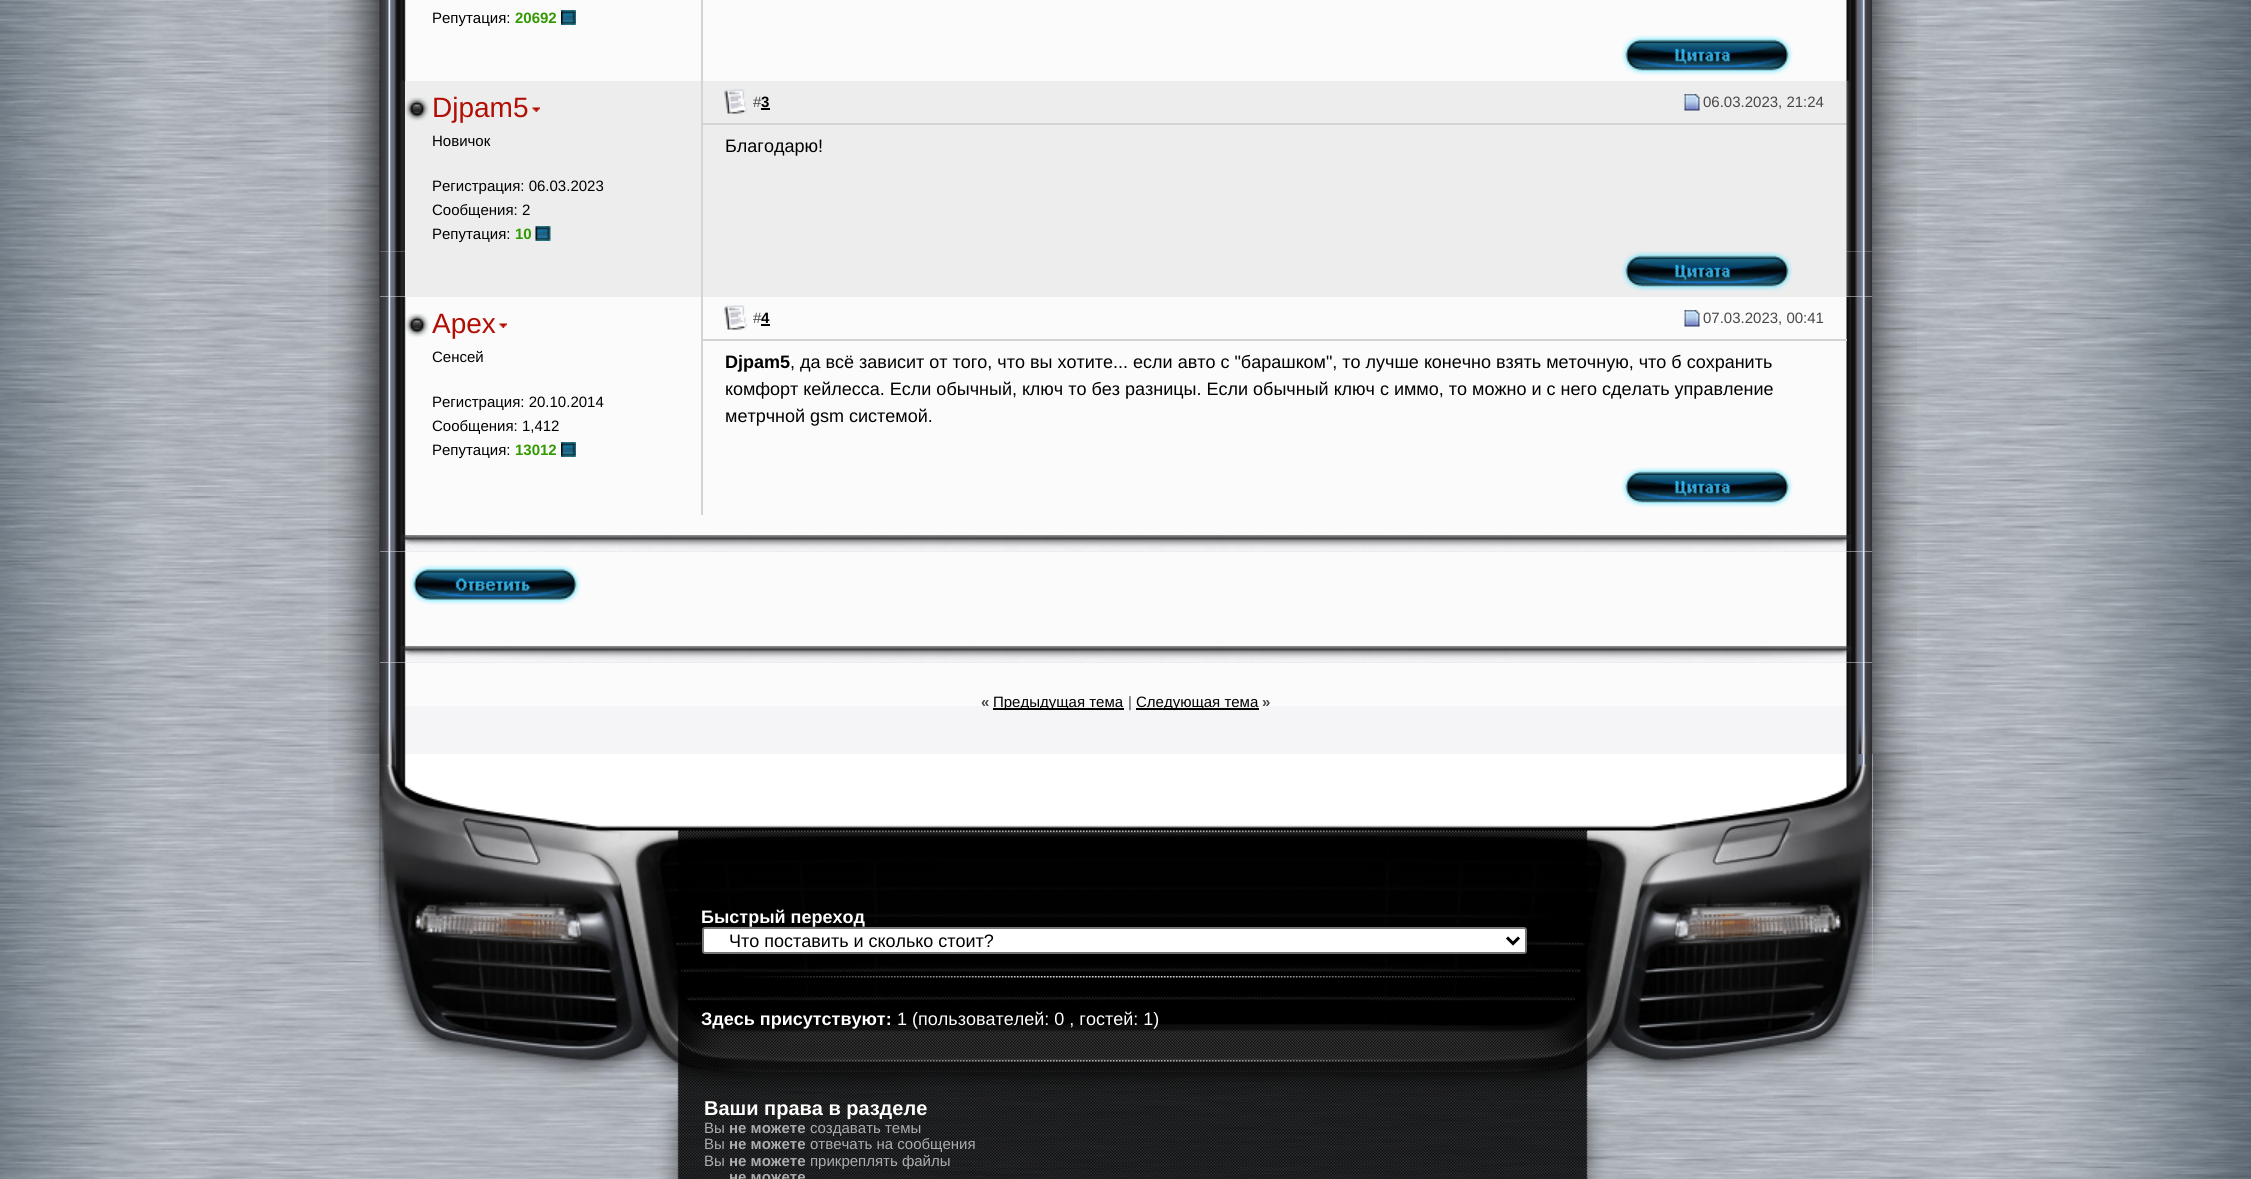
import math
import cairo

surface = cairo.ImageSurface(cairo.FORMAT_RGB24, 2251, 1179)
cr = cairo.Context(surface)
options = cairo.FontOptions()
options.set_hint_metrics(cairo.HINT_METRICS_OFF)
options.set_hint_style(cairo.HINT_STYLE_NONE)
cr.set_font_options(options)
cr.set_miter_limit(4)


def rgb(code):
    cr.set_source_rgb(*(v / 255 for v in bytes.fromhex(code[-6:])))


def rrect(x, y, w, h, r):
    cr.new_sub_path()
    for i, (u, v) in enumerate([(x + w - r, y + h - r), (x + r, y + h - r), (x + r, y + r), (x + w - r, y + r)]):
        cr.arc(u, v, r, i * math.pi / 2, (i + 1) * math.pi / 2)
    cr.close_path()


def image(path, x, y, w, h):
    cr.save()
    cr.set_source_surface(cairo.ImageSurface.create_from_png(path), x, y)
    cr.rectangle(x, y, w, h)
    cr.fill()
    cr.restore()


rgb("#ffffff")
cr.paint()
image("img/1.png", 0, 0, 2251, 1179)
image("img/2.png", 328, 0, 1589, 754)
image("img/3.png", 379, 0, 1493, 754)
image("img/4.png", 379, 706, 1493, 48)
image("img/5.png", 561, 10, 15, 15)
rgb("#d4d4d5")
cr.rectangle(701, 0, 2, 83)
cr.fill()
image("img/6.png", 1621, 35, 172, 41)
rgb("#ededee")
cr.rectangle(380, 81, 1492, 216)
cr.fill()
image("img/10.png", 379, 80, 26, 172)
image("img/7.png", 379, 251, 26, 46)
rgb("#d4d4d5")
cr.rectangle(702, 123, 1145, 2)
cr.fill()
cr.rectangle(701, 81, 2, 218)
cr.fill()
image("img/8.png", 1621, 251, 172, 41)
rgb("#e4e5e6")
cr.rectangle(1847, 296, 25, 1)
cr.fill()
image("img/16.png", 1846, 80, 26, 172)
image("img/9.png", 1846, 251, 26, 46)
image("img/11.png", 405, 97, 24, 24)
image("img/12.png", 532, 107, 8, 5)
image("img/13.png", 535, 226, 16, 15)
image("img/14.png", 724, 89, 23, 25)
rgb("#000000")
cr.rectangle(761, 108, 9, 2)
cr.fill()
image("img/15.png", 1684, 94, 16, 17)
rgb("#d4d4d5")
cr.rectangle(702, 339, 1145, 2)
cr.fill()
cr.rectangle(701, 297, 2, 218)
cr.fill()
image("img/6.png", 1621, 467, 172, 41)
image("img/17.png", 405, 313, 24, 24)
image("img/18.png", 499, 323, 8, 5)
image("img/5.png", 561, 442, 15, 15)
image("img/19.png", 724, 305, 24, 25)
rgb("#000000")
cr.rectangle(761, 324, 9, 2)
cr.fill()
image("img/20.png", 1684, 310, 16, 17)
rgb("#e4e5e6")
cr.rectangle(380, 551, 1492, 1)
cr.fill()
image("img/21.png", 379, 535, 1493, 17)
image("img/22.png", 409, 565, 172, 40)
cr.rectangle(380, 662, 1492, 1)
cr.fill()
image("img/23.png", 379, 646, 1493, 17)
rgb("#000000")
cr.rectangle(993, 708, 131, 2)
cr.fill()
cr.rectangle(1136, 708, 123, 2)
cr.fill()
image("img/24.png", 333, 754, 1589, 233)
image("img/25.png", 379, 754, 1493, 425)
rgb("#ffffff")
rrect(703, 928, 823, 25, 2)
cr.fill_preserve()
rgb("#767676")
cr.stroke()
cr.new_path()
cr.move_to(1507, 937.5)
cr.line_to(1513, 943.5)
cr.line_to(1519, 937.5)
rgb("#000000")
cr.set_line_width(3)
cr.stroke()
image("img/26.png", 744, 976, 793, 2)
cr.select_font_face("Liberation Sans")
cr.set_font_size(15)
cr.move_to(432, 23)
cr.show_text("Репутация:")
cr.select_font_face("Liberation Sans", cairo.FONT_SLANT_NORMAL, cairo.FONT_WEIGHT_BOLD)
rgb("#339900")
cr.move_to(515, 23)
cr.show_text("20692")
cr.select_font_face("Liberation Sans")
cr.set_font_size(28)
rgb("#b10f04")
cr.move_to(432, 117)
cr.show_text("Djpam5")
cr.set_font_size(15)
rgb("#000000")
for x, y, s in [
    (432, 146, "Новичок"),
    (432, 191, "Регистрация: 06.03.2023"),
    (432, 215, "Сообщения: 2"),
    (432, 239, "Репутация:"),
]:
    cr.move_to(x, y)
    cr.show_text(s)
cr.select_font_face("Liberation Sans", cairo.FONT_SLANT_NORMAL, cairo.FONT_WEIGHT_BOLD)
rgb("#339900")
cr.move_to(515, 239)
cr.show_text("10")
cr.select_font_face("Liberation Sans")
rgb("#484747")
cr.move_to(753, 107)
cr.show_text("#")
cr.select_font_face("Liberation Sans", cairo.FONT_SLANT_NORMAL, cairo.FONT_WEIGHT_BOLD)
rgb("#000000")
cr.move_to(761, 107)
cr.show_text("3")
cr.select_font_face("Liberation Sans")
rgb("#484747")
cr.move_to(1703, 107)
cr.show_text("06.03.2023, 21:24")
cr.set_font_size(18)
rgb("#000000")
cr.move_to(725, 152)
cr.show_text("Благодарю!")
cr.set_font_size(28)
rgb("#b10f04")
cr.move_to(432, 333)
cr.show_text("Apex")
cr.set_font_size(15)
rgb("#000000")
for x, y, s in [
    (432, 362, "Сенсей"),
    (432, 407, "Регистрация: 20.10.2014"),
    (432, 431, "Сообщения: 1,412"),
    (432, 455, "Репутация:"),
]:
    cr.move_to(x, y)
    cr.show_text(s)
cr.select_font_face("Liberation Sans", cairo.FONT_SLANT_NORMAL, cairo.FONT_WEIGHT_BOLD)
rgb("#339900")
cr.move_to(515, 455)
cr.show_text("13012")
cr.select_font_face("Liberation Sans")
rgb("#484747")
cr.move_to(753, 323)
cr.show_text("#")
cr.select_font_face("Liberation Sans", cairo.FONT_SLANT_NORMAL, cairo.FONT_WEIGHT_BOLD)
rgb("#000000")
cr.move_to(761, 323)
cr.show_text("4")
cr.select_font_face("Liberation Sans")
rgb("#484747")
cr.move_to(1703, 323)
cr.show_text("07.03.2023, 00:41")
cr.select_font_face("Liberation Sans", cairo.FONT_SLANT_NORMAL, cairo.FONT_WEIGHT_BOLD)
cr.set_font_size(18)
rgb("#000000")
cr.move_to(725, 368)
cr.show_text("Djpam5")
cr.select_font_face("Liberation Sans")
for x, y, s in [
    (790, 368, ", да всё зависит от того, что вы хотите... если авто с \"барашком\", то лучше конечно взять меточную, что б сохранить"),
    (725, 395, "комфорт кейлесса. Если обычный, ключ то без разницы. Если обычный ключ с иммо, то можно и с него сделать управление"),
    (725, 422, "метрчной gsm системой."),
]:
    cr.move_to(x, y)
    cr.show_text(s)
cr.select_font_face("Liberation Sans", cairo.FONT_SLANT_NORMAL, cairo.FONT_WEIGHT_BOLD)
cr.set_font_size(15)
rgb("#484747")
cr.move_to(981, 707)
cr.show_text("«")
cr.select_font_face("Liberation Sans")
rgb("#000000")
cr.move_to(993, 707)
cr.show_text("Предыдущая тема")
rgb("#484747")
cr.move_to(1128, 707)
cr.show_text("|")
rgb("#000000")
cr.move_to(1136, 707)
cr.show_text("Следующая тема")
cr.select_font_face("Liberation Sans", cairo.FONT_SLANT_NORMAL, cairo.FONT_WEIGHT_BOLD)
rgb("#484747")
cr.move_to(1262, 707)
cr.show_text("»")
cr.set_font_size(18)
rgb("#ffffff")
cr.move_to(701, 923)
cr.show_text("Быстрый переход")
cr.select_font_face("Liberation Sans")
rgb("#000000")
cr.move_to(729, 947)
cr.show_text("Что поставить и сколько стоит?")
cr.select_font_face("Liberation Sans", cairo.FONT_SLANT_NORMAL, cairo.FONT_WEIGHT_BOLD)
rgb("#ffffff")
cr.move_to(701, 1025)
cr.show_text("Здесь присутствуют:")
cr.select_font_face("Liberation Sans")
cr.move_to(897, 1025)
cr.show_text("1 (пользователей: 0 , гостей: 1)")
cr.select_font_face("Liberation Sans", cairo.FONT_SLANT_NORMAL, cairo.FONT_WEIGHT_BOLD)
cr.set_font_size(20)
cr.move_to(704, 1115)
cr.show_text("Ваши права в разделе")
cr.select_font_face("Liberation Sans")
cr.set_font_size(15)
rgb("#acadae")
cr.move_to(704, 1133)
cr.show_text("Вы")
cr.select_font_face("Liberation Sans", cairo.FONT_SLANT_NORMAL, cairo.FONT_WEIGHT_BOLD)
cr.move_to(729, 1133)
cr.show_text("не можете")
cr.select_font_face("Liberation Sans")
cr.move_to(810, 1133)
cr.show_text("создавать темы")
cr.move_to(704, 1149)
cr.show_text("Вы")
cr.select_font_face("Liberation Sans", cairo.FONT_SLANT_NORMAL, cairo.FONT_WEIGHT_BOLD)
cr.move_to(729, 1149)
cr.show_text("не можете")
cr.select_font_face("Liberation Sans")
cr.move_to(810, 1149)
cr.show_text("отвечать на сообщения")
cr.move_to(704, 1166)
cr.show_text("Вы")
cr.select_font_face("Liberation Sans", cairo.FONT_SLANT_NORMAL, cairo.FONT_WEIGHT_BOLD)
cr.move_to(729, 1166)
cr.show_text("не можете")
cr.select_font_face("Liberation Sans")
cr.move_to(810, 1166)
cr.show_text("прикреплять файлы")
cr.select_font_face("Liberation Sans", cairo.FONT_SLANT_NORMAL, cairo.FONT_WEIGHT_BOLD)
cr.move_to(729, 1182)
cr.show_text("не можете")
surface.write_to_png("page.png")
